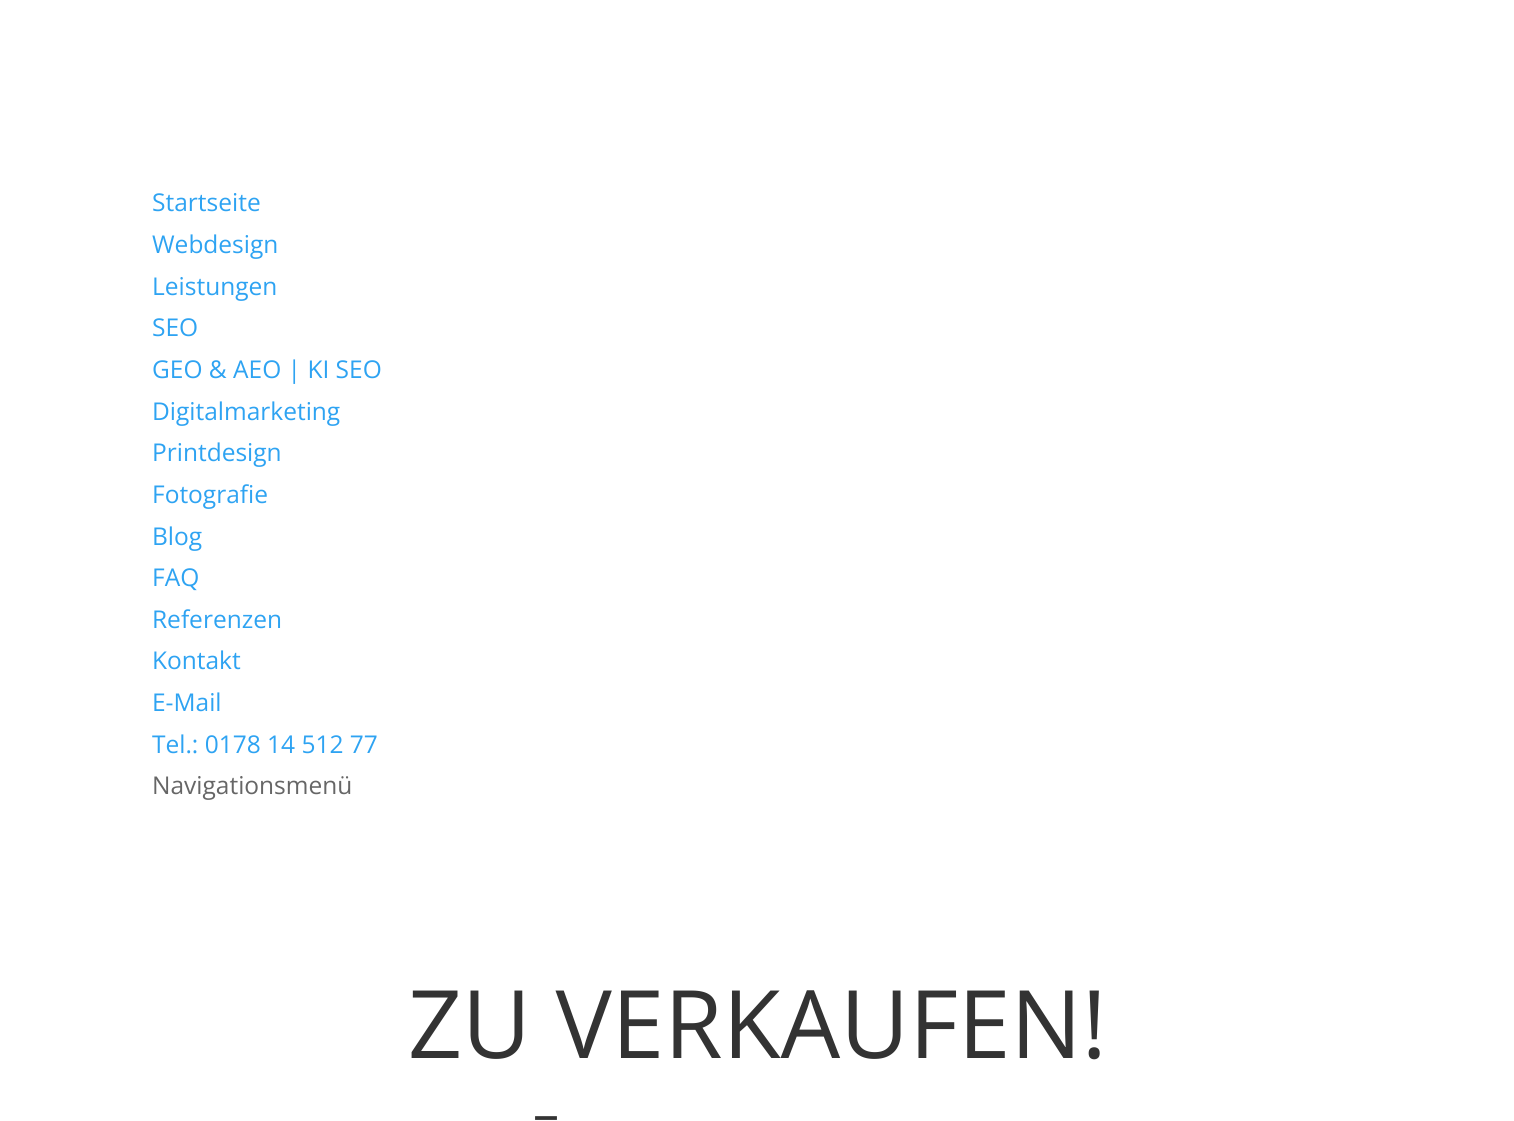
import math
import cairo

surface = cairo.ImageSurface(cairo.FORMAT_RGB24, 1514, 1121)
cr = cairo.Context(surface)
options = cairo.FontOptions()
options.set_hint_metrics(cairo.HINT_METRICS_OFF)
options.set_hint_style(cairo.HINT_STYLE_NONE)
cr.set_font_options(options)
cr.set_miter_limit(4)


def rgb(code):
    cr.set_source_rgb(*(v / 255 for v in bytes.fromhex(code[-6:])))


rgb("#ffffff")
cr.paint()
cr.select_font_face("Open Sans")
cr.set_font_size(24.5)
rgb("#2ea3f2")
for x, y, s in [
    (152, 211, "Startseite"),
    (152, 253, "Webdesign"),
    (152, 295, "Leistungen"),
    (152, 336, "SEO"),
    (152, 378, "GEO & AEO | KI SEO"),
    (152, 420, "Digitalmarketing"),
    (152, 461, "Printdesign"),
    (152, 503, "Fotografie"),
    (152, 545, "Blog"),
    (152, 586, "FAQ"),
    (152, 628, "Referenzen"),
    (152, 669, "Kontakt"),
    (152, 711, "E-Mail"),
    (152, 753, "Tel.: 0178 14 512 77"),
]:
    cr.move_to(x, y)
    cr.show_text(s)
rgb("#666666")
cr.move_to(152, 794)
cr.show_text("Navigationsmenü")
cr.set_font_size(94.5)
rgb("#333333")
cr.move_to(408, 1058)
cr.show_text("ZU VERKAUFEN!")
cr.set_font_size(52)
cr.move_to(533, 1132)
cr.show_text("–")
surface.write_to_png("page.png")
